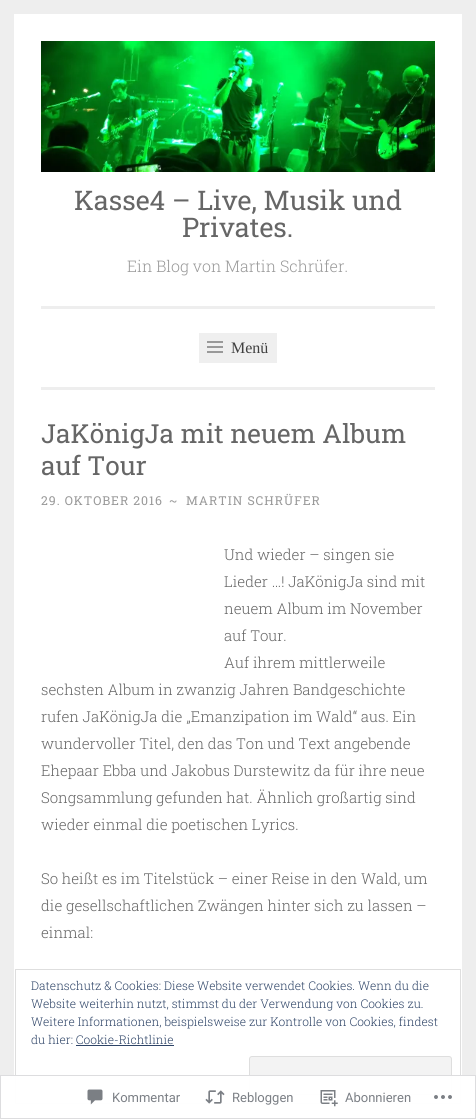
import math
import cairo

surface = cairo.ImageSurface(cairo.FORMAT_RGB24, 476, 1119)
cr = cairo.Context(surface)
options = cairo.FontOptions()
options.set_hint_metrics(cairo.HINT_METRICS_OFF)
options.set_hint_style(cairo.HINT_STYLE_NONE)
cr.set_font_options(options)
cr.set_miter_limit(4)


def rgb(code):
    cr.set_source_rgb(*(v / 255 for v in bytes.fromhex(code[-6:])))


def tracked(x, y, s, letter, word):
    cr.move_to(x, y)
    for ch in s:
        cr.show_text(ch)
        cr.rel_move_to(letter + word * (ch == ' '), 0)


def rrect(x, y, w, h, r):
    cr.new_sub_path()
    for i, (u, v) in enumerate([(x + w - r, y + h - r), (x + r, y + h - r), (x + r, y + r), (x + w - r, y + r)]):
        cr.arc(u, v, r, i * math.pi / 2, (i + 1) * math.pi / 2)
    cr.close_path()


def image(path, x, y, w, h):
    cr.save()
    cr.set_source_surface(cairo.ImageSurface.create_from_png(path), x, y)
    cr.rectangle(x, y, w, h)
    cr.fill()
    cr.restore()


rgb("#eeeeee")
cr.paint()
rgb("#ffffff")
cr.rectangle(14, 14, 448, 1105)
cr.fill()
rgb("#eeeeee")
cr.rectangle(41, 387, 394, 3)
cr.fill()
image("img/1.png", 41, 41, 394, 131)
cr.rectangle(41, 306, 394, 3)
cr.fill()
rgb("#efefef")
cr.rectangle(199, 333, 78, 30)
cr.fill()
image("img/2.png", 207, 341, 16, 12)
cr.rectangle(15.5, 969.5, 445, 134)
rgb("#dedede")
cr.set_line_width(1)
cr.stroke()
rgb("#2e4467")
cr.rectangle(76, 1045, 98, 1)
cr.fill()
rgb("#f3f3f3")
rrect(249.5, 1056.5, 202, 38, 2.5)
cr.fill_preserve()
rgb("#dedede")
cr.stroke()
cr.set_source_rgba(1, 1, 1, 0.98)
cr.rectangle(0, 1075, 476, 44)
cr.fill()
cr.rectangle(0.5, 1075.5, 475, 43)
cr.set_source_rgba(0.863, 0.863, 0.871, 0.98)
cr.stroke()
image("img/3.png", 87, 1089, 16, 16)
image("img/4.png", 205, 1090, 20, 14)
image("img/5.png", 320, 1090, 18, 17)
image("img/6.png", 434, 1095, 18, 4)
cr.select_font_face("Roboto Slab")
cr.set_font_size(27)
rgb("#666666")
cr.move_to(74, 210)
cr.show_text("Kasse4 – Live, Musik und")
cr.move_to(182, 237)
cr.show_text("Privates.")
cr.select_font_face("Roboto Slab Light")
cr.set_font_size(16)
rgb("#999999")
cr.move_to(127, 272)
cr.show_text("Ein Blog von Martin Schrüfer.")
cr.select_font_face("Liberation Serif")
rgb("#404040")
cr.move_to(231, 353)
cr.show_text("Menü")
cr.select_font_face("Roboto Slab")
cr.set_font_size(26.25)
rgb("#666666")
cr.move_to(41, 443)
cr.show_text("JaKönigJa mit neuem Album")
cr.move_to(41, 475)
cr.show_text("auf Tour")
cr.set_font_size(12.25)
rgb("#999999")
for x, y, s in [
    (41, 505, "29. OKTOBER 2016"),
    (169, 505, "~"),
    (186, 505, "MARTIN SCHRÜFER"),
]:
    tracked(x, y, s, 1, 0)
cr.select_font_face("Roboto Slab Light")
cr.set_font_size(15)
rgb("#666666")
for x, y, s in [
    (224, 560, "Und wieder – singen sie"),
    (224, 587, "Lieder …! JaKönigJa sind mit"),
    (224, 614, "neuem Album im November"),
    (224, 641, "auf Tour."),
    (224, 668, "Auf ihrem mittlerweile"),
    (41, 695, "sechsten Album in zwanzig Jahren Bandgeschichte"),
    (41, 722, "rufen JaKönigJa die „Emanzipation im Wald“ aus. Ein"),
    (41, 749, "wundervoller Titel, den das Ton und Text angebende"),
    (41, 776, "Ehepaar Ebba und Jakobus Durstewitz da für ihre neue"),
    (41, 803, "Songsammlung gefunden hat. Ähnlich großartig sind"),
    (41, 830, "wieder einmal die poetischen Lyrics."),
    (41, 884, "So heißt es im Titelstück – einer Reise in den Wald, um"),
    (41, 911, "die gesellschaftlichen Zwängen hinter sich zu lassen –"),
    (41, 938, "einmal:"),
]:
    cr.move_to(x, y)
    cr.show_text(s)
cr.set_font_size(12)
rgb("#2e4467")
for x, y, s in [
    (31, 990, "Datenschutz & Cookies: Diese Website verwendet Cookies. Wenn du die"),
    (31, 1008, "Website weiterhin nutzt, stimmst du der Verwendung von Cookies zu."),
    (31, 1026, "Weitere Informationen, beispielsweise zur Kontrolle von Cookies, findest"),
    (31, 1044, "du hier: Cookie-Richtlinie"),
]:
    cr.move_to(x, y)
    cr.show_text(s)
cr.select_font_face("Roboto")
cr.set_font_size(13)
rgb("#7b7f85")
for x, y, s in [
    (112, 1102, "Kommentar"),
    (232, 1102, "Rebloggen"),
    (345, 1102, "Abonnieren"),
]:
    cr.move_to(x, y)
    cr.show_text(s)
surface.write_to_png("page.png")
